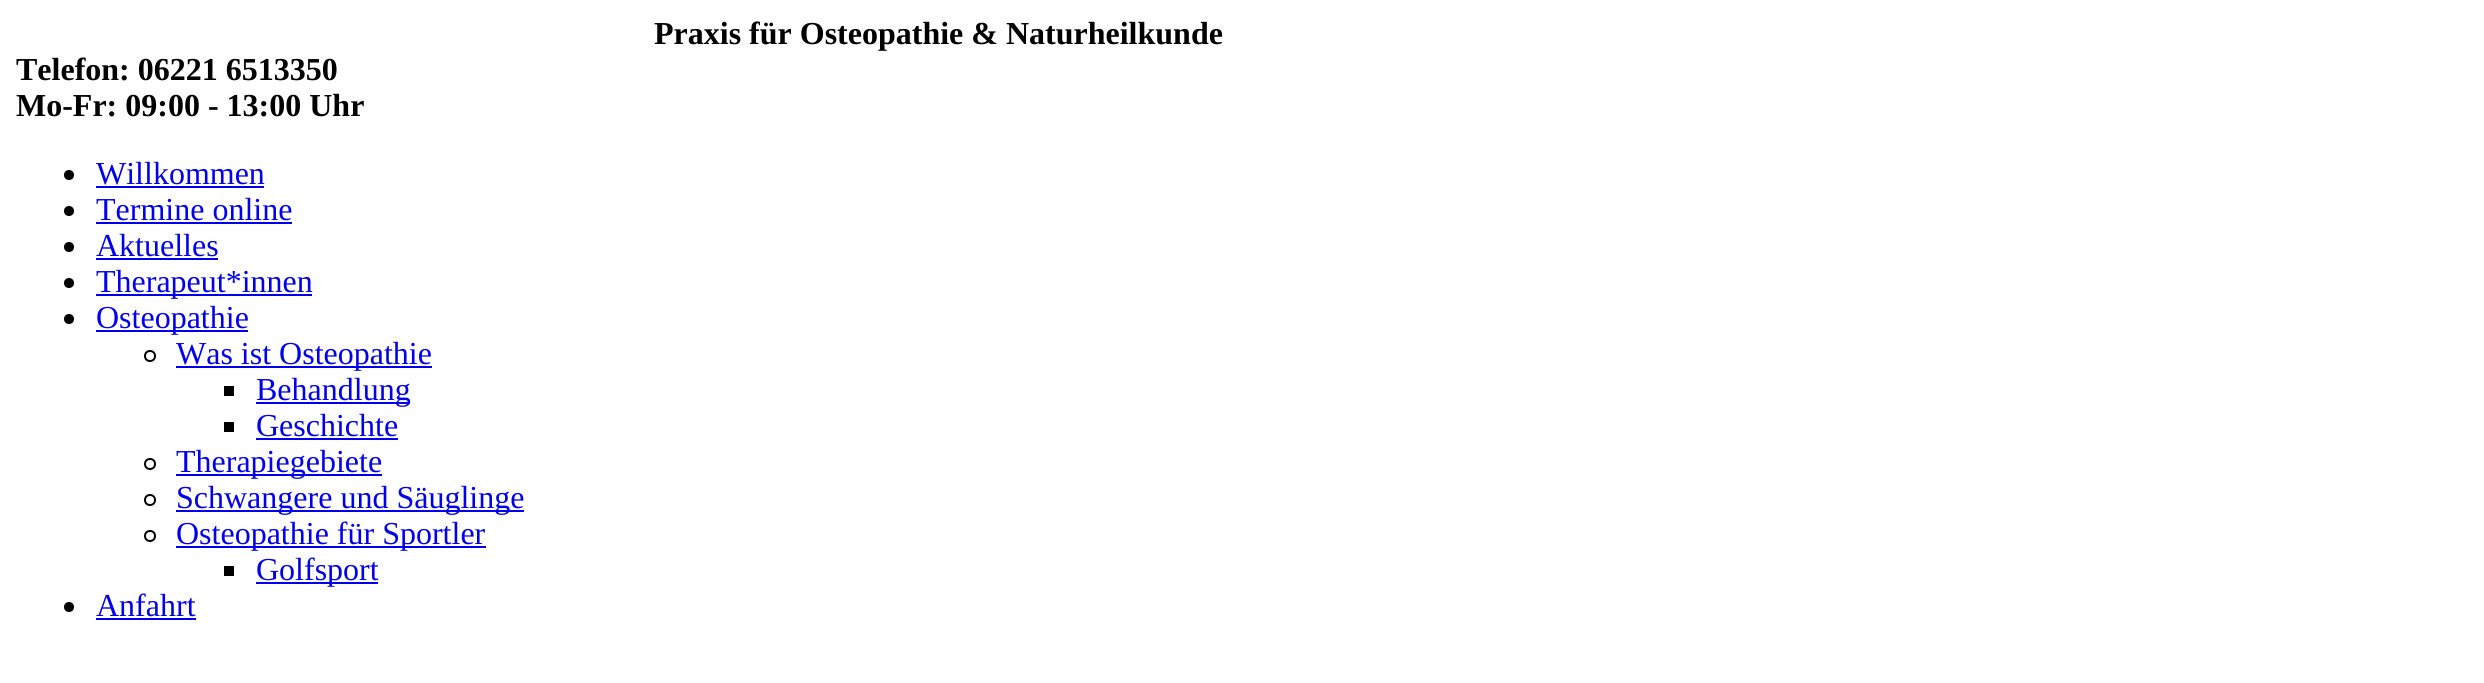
import math
import cairo

surface = cairo.ImageSurface(cairo.FORMAT_RGB24, 2484, 683)
cr = cairo.Context(surface)
options = cairo.FontOptions()
options.set_hint_metrics(cairo.HINT_METRICS_OFF)
options.set_hint_style(cairo.HINT_STYLE_NONE)
cr.set_font_options(options)
cr.set_miter_limit(4)


def rgb(code):
    cr.set_source_rgb(*(v / 255 for v in bytes.fromhex(code[-6:])))


rgb("#ffffff")
cr.paint()
rgb("#000000")
cr.arc(69, 175, 5, 0, 2 * math.pi)
cr.fill()
rgb("#0000ee")
cr.rectangle(96, 186, 168, 2)
cr.fill()
rgb("#000000")
cr.arc(69, 211, 5, 0, 2 * math.pi)
cr.fill()
rgb("#0000ee")
cr.rectangle(96, 222, 196, 2)
cr.fill()
rgb("#000000")
cr.arc(69, 247, 5, 0, 2 * math.pi)
cr.fill()
rgb("#0000ee")
cr.rectangle(96, 258, 122, 2)
cr.fill()
rgb("#000000")
cr.arc(69, 283, 5, 0, 2 * math.pi)
cr.fill()
rgb("#0000ee")
cr.rectangle(96, 294, 216, 2)
cr.fill()
rgb("#000000")
cr.arc(69, 319, 5, 0, 2 * math.pi)
cr.fill()
rgb("#0000ee")
cr.rectangle(96, 330, 152, 2)
cr.fill()
cr.arc(150, 356, 5, 0, 2 * math.pi)
rgb("#000000")
cr.stroke()
for x, y, w, h, color in [
    (176, 366, 256, 2, "#0000ee"),
    (224, 386, 10, 10, "#000000"),
    (256, 402, 154, 2, "#0000ee"),
    (224, 422, 10, 10, "#000000"),
    (256, 438, 142, 2, "#0000ee"),
]:
    rgb(color)
    cr.rectangle(x, y, w, h)
    cr.fill()
cr.arc(150, 464, 5, 0, 2 * math.pi)
rgb("#000000")
cr.stroke()
rgb("#0000ee")
cr.rectangle(176, 474, 206, 2)
cr.fill()
cr.arc(150, 500, 5, 0, 2 * math.pi)
rgb("#000000")
cr.stroke()
rgb("#0000ee")
cr.rectangle(176, 510, 348, 2)
cr.fill()
cr.arc(150, 536, 5, 0, 2 * math.pi)
rgb("#000000")
cr.stroke()
for x, y, w, h, color in [
    (176, 546, 310, 2, "#0000ee"),
    (224, 566, 10, 10, "#000000"),
    (256, 582, 122, 2, "#0000ee"),
]:
    rgb(color)
    cr.rectangle(x, y, w, h)
    cr.fill()
rgb("#000000")
cr.arc(69, 607, 5, 0, 2 * math.pi)
cr.fill()
rgb("#0000ee")
cr.rectangle(96, 618, 100, 2)
cr.fill()
cr.select_font_face("Liberation Serif", cairo.FONT_SLANT_NORMAL, cairo.FONT_WEIGHT_BOLD)
cr.set_font_size(32)
rgb("#000000")
for x, y, s in [
    (654, 44, "Praxis für Osteopathie & Naturheilkunde"),
    (16, 80, "Telefon: 06221 6513350"),
    (16, 116, "Mo-Fr: 09:00 - 13:00 Uhr"),
]:
    cr.move_to(x, y)
    cr.show_text(s)
cr.select_font_face("Liberation Serif")
rgb("#0000ee")
for x, y, s in [
    (96, 184, "Willkommen"),
    (96, 220, "Termine online"),
    (96, 256, "Aktuelles"),
    (96, 292, "Therapeut*innen"),
    (96, 328, "Osteopathie"),
    (176, 364, "Was ist Osteopathie"),
    (256, 400, "Behandlung"),
    (256, 436, "Geschichte"),
    (176, 472, "Therapiegebiete"),
    (176, 508, "Schwangere und Säuglinge"),
    (176, 544, "Osteopathie für Sportler"),
    (256, 580, "Golfsport"),
    (96, 616, "Anfahrt"),
]:
    cr.move_to(x, y)
    cr.show_text(s)
surface.write_to_png("page.png")
